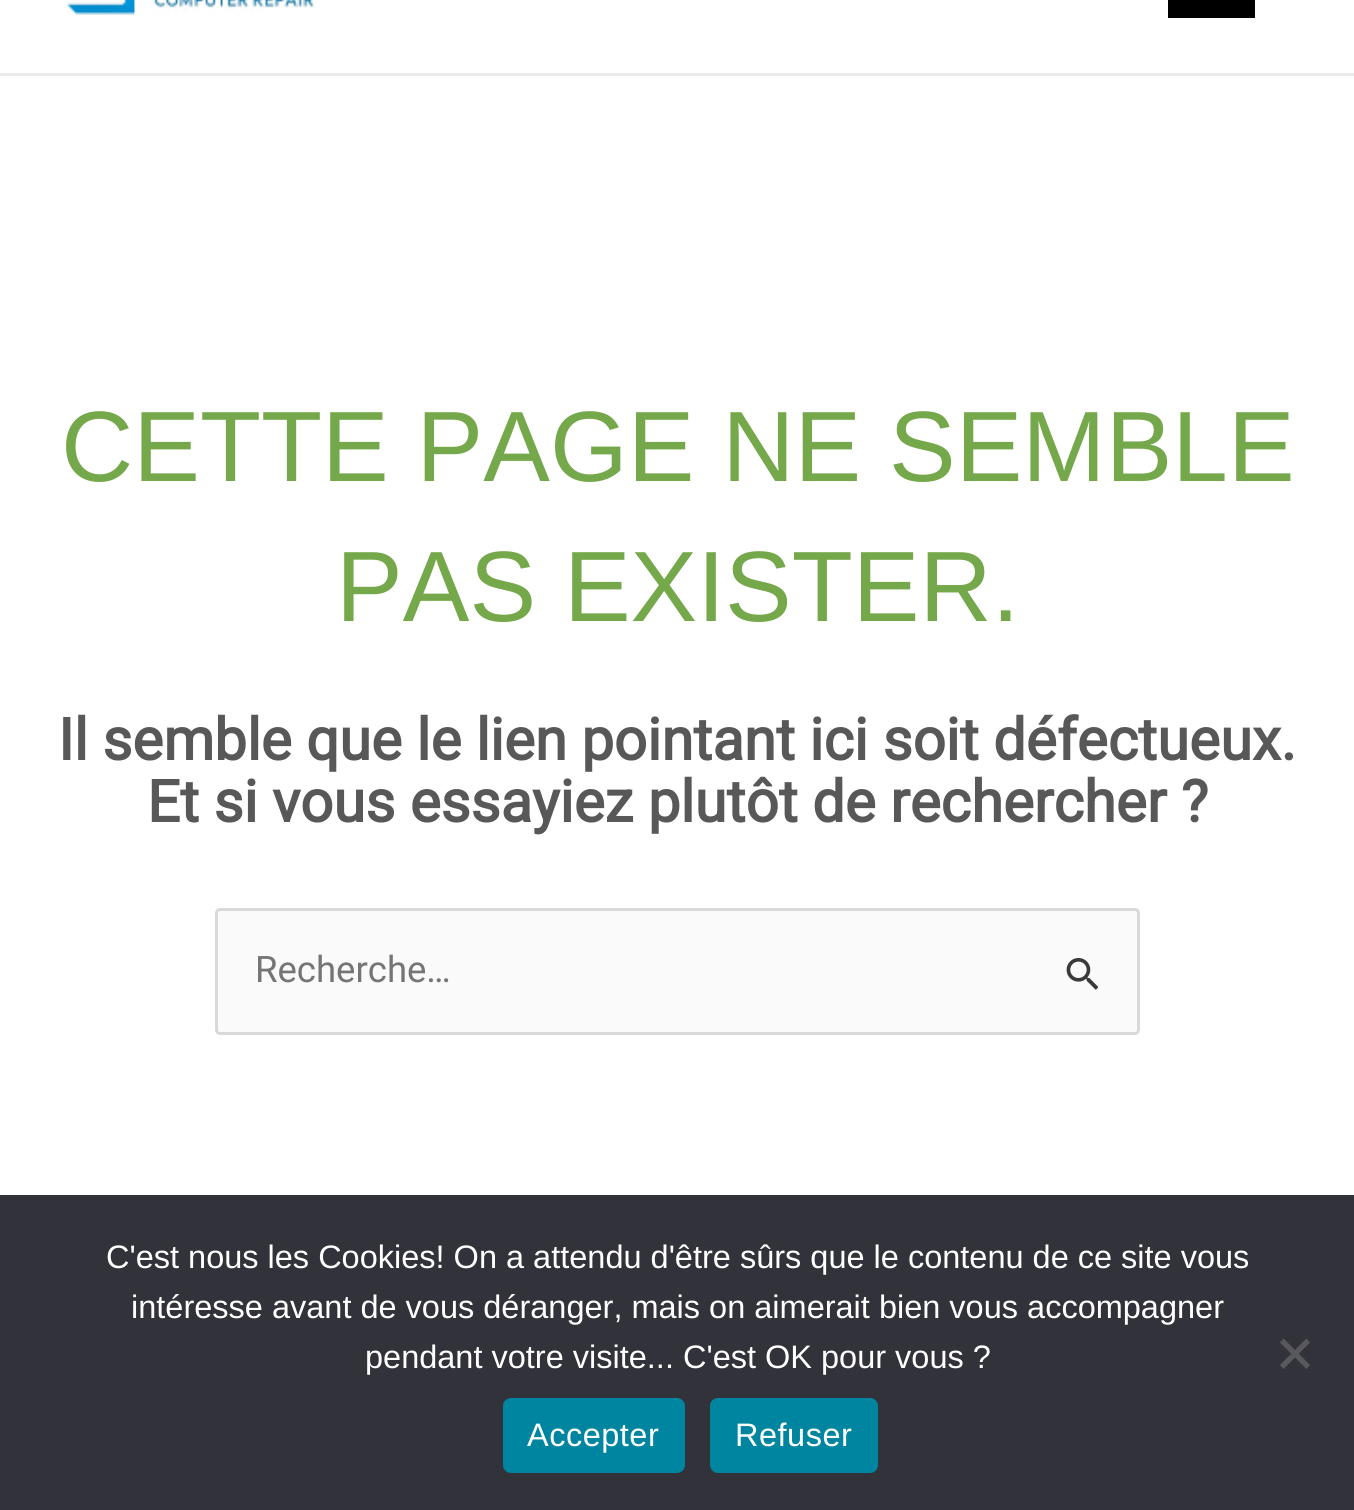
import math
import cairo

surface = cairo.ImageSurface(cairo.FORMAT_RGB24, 1354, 1510)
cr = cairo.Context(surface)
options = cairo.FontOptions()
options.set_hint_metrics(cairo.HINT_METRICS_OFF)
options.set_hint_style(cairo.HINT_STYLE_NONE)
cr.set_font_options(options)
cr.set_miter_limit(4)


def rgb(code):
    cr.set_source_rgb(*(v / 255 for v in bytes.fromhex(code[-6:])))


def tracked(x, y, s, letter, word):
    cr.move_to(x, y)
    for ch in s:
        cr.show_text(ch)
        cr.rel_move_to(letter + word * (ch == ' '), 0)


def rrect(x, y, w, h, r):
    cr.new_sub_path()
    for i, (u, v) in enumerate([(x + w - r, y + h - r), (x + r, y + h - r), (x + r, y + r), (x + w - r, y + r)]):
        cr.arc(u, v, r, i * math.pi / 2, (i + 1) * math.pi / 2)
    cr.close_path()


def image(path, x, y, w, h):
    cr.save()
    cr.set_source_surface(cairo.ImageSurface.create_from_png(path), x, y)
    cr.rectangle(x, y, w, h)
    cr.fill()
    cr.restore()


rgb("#ffffff")
cr.paint()
rgb("#eaeaea")
cr.rectangle(0, 73, 1354, 3)
cr.fill()
image("img/1.png", 66, 0, 249, 15)
rgb("#000000")
cr.rectangle(1168, 0, 87, 18)
cr.fill()
rgb("#fafafa")
rrect(216.5, 909.5, 922, 124, 3.5)
cr.fill_preserve()
rgb("#d9d9d9")
cr.set_line_width(3)
cr.stroke()
image("img/2.png", 1066, 957, 32, 33)
rgb("#32323a")
cr.rectangle(0, 1195, 1354, 315)
cr.fill()
rgb("#59595d")
cr.new_path()
cr.move_to(1306.5, 1338.5)
cr.line_to(1310, 1342.5)
cr.line_to(1283.5, 1369)
cr.line_to(1280, 1365)
cr.close_path()
cr.fill()
cr.new_path()
cr.move_to(1280, 1342.5)
cr.line_to(1283.5, 1338.5)
cr.line_to(1310, 1365)
cr.line_to(1306.5, 1369)
cr.close_path()
cr.fill()
rgb("#0085a0")
rrect(503, 1398, 182, 75, 8)
cr.fill()
rrect(710, 1398, 168, 75, 8)
cr.fill()
cr.select_font_face("Liberation Sans")
cr.set_font_size(100)
rgb("#74a84a")
cr.move_to(61, 481)
cr.show_text("CETTE PAGE NE SEMBLE")
cr.move_to(336, 621)
cr.show_text("PAS EXISTER.")
cr.select_font_face("Roboto", cairo.FONT_SLANT_NORMAL, cairo.FONT_WEIGHT_BOLD)
cr.set_font_size(58.1)
rgb("#585858")
cr.move_to(58, 760)
cr.show_text("Il semble que le lien pointant ici soit défectueux.")
cr.move_to(147, 822)
cr.show_text("Et si vous essayiez plutôt de rechercher ?")
cr.select_font_face("Roboto")
cr.set_font_size(36.5)
rgb("#757575")
cr.move_to(255, 982)
cr.show_text("Recherche…")
cr.select_font_face("Liberation Sans")
cr.set_font_size(32.5)
rgb("#ffffff")
for x, y, s in [
    (106, 1268, "C'est nous les Cookies! On a attendu d'être sûrs que le contenu de ce site vous"),
    (131, 1318, "intéresse avant de vous déranger, mais on aimerait bien vous accompagner"),
    (365, 1368, "pendant votre visite... C'est OK pour vous ?"),
]:
    cr.move_to(x, y)
    cr.show_text(s)
tracked(527, 1446, "Accepter", 0.5, 0)
tracked(735, 1446, "Refuser", 0.5, 0)
surface.write_to_png("page.png")
